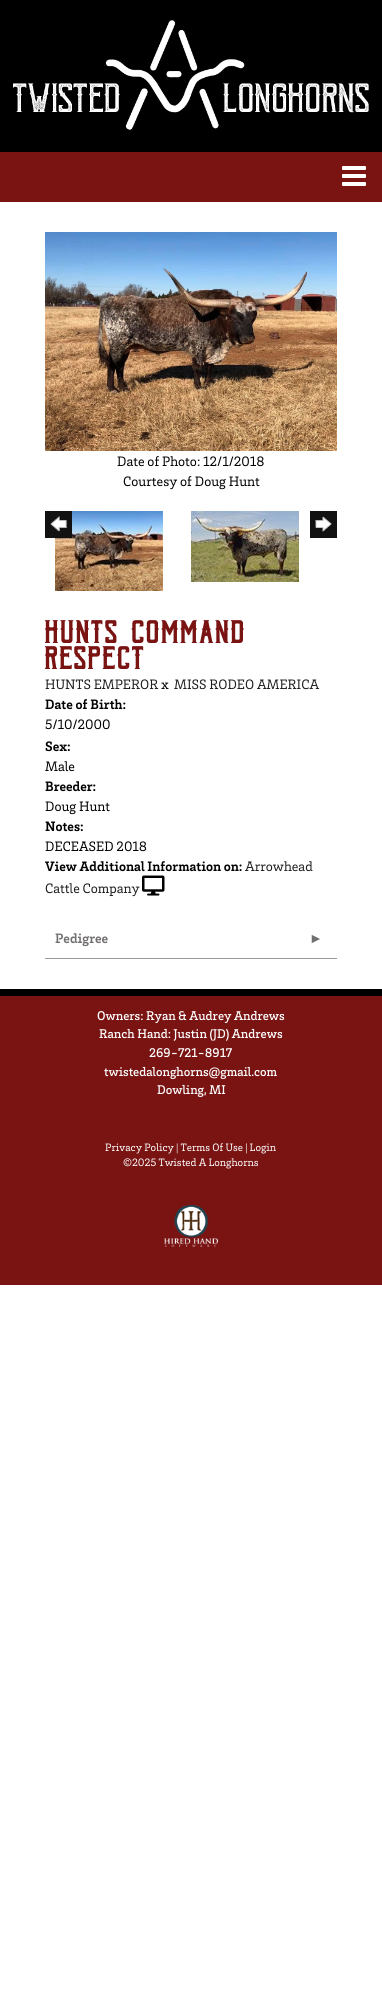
import math
import cairo

surface = cairo.ImageSurface(cairo.FORMAT_RGB24, 382, 2011)
cr = cairo.Context(surface)
options = cairo.FontOptions()
options.set_hint_metrics(cairo.HINT_METRICS_OFF)
options.set_hint_style(cairo.HINT_STYLE_NONE)
cr.set_font_options(options)
cr.set_miter_limit(4)


def rgb(code):
    cr.set_source_rgb(*(v / 255 for v in bytes.fromhex(code[-6:])))


def tracked(x, y, s, letter, word):
    cr.move_to(x, y)
    for ch in s:
        cr.show_text(ch)
        cr.rel_move_to(letter + word * (ch == ' '), 0)


def image(path, x, y, w, h):
    cr.save()
    cr.set_source_surface(cairo.ImageSurface.create_from_png(path), x, y)
    cr.rectangle(x, y, w, h)
    cr.fill()
    cr.restore()


rgb("#ffffff")
cr.paint()
rgb("#000000")
cr.rectangle(0, 0, 382, 152)
cr.fill()
image("img/1.png", 13, 20, 356, 110)
rgb("#791413")
cr.rectangle(0, 152, 382, 50)
cr.fill()
image("img/2.png", 342, 166, 24, 20)
image("img/3.png", 45, 232, 292, 219)
image("img/5.png", 55, 511, 108, 80)
image("img/4.png", 45, 511, 27, 27)
image("img/6.png", 191, 511, 108, 71)
image("img/7.png", 310, 511, 27, 27)
image("img/8.png", 142, 875, 23, 21)
for x, y, w, h, color in [
    (45, 958, 292, 1, "#9b9999"),
    (0, 996, 382, 289, "#791413"),
    (0, 989, 382, 7, "#000000"),
]:
    rgb(color)
    cr.rectangle(x, y, w, h)
    cr.fill()
image("img/9.png", 164, 1205, 54, 42)
cr.select_font_face("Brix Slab")
cr.set_font_size(14)
cr.move_to(117, 466)
cr.show_text("Date of Photo: 12/1/2018")
cr.move_to(123, 486)
cr.show_text("Courtesy of Doug Hunt")
cr.select_font_face("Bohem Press", cairo.FONT_SLANT_NORMAL, cairo.FONT_WEIGHT_BOLD)
cr.set_font_size(26)
rgb("#791413")
tracked(45, 643, "HUNTS COMMAND", 2.1, 0)
tracked(45, 669, "RESPECT", 2.1, 0)
cr.select_font_face("Brix Slab")
cr.set_font_size(14)
rgb("#1e1e1e")
cr.move_to(45, 689)
cr.show_text("HUNTS EMPEROR")
rgb("#000000")
cr.move_to(161, 689)
cr.show_text("x")
rgb("#1e1e1e")
cr.move_to(174, 689)
cr.show_text("MISS RODEO AMERICA")
cr.select_font_face("Brix Slab", cairo.FONT_SLANT_NORMAL, cairo.FONT_WEIGHT_BOLD)
rgb("#000000")
cr.move_to(45, 709)
cr.show_text("Date of Birth:")
cr.select_font_face("Brix Slab")
cr.move_to(45, 729)
cr.show_text("5/10/2000")
cr.select_font_face("Brix Slab", cairo.FONT_SLANT_NORMAL, cairo.FONT_WEIGHT_BOLD)
cr.move_to(45, 751)
cr.show_text("Sex:")
cr.select_font_face("Brix Slab")
cr.move_to(45, 771)
cr.show_text("Male")
cr.select_font_face("Brix Slab", cairo.FONT_SLANT_NORMAL, cairo.FONT_WEIGHT_BOLD)
cr.move_to(45, 791)
cr.show_text("Breeder:")
cr.select_font_face("Brix Slab")
cr.move_to(45, 811)
cr.show_text("Doug Hunt")
cr.select_font_face("Brix Slab", cairo.FONT_SLANT_NORMAL, cairo.FONT_WEIGHT_BOLD)
cr.move_to(45, 831)
cr.show_text("Notes:")
cr.select_font_face("Brix Slab")
cr.move_to(45, 851)
cr.show_text("DECEASED 2018")
cr.select_font_face("Brix Slab", cairo.FONT_SLANT_NORMAL, cairo.FONT_WEIGHT_BOLD)
cr.move_to(45, 871)
cr.show_text("View Additional Information on:")
cr.select_font_face("Brix Slab")
rgb("#1e1e1e")
cr.move_to(245, 871)
cr.show_text("Arrowhead")
cr.move_to(45, 893)
cr.show_text("Cattle Company")
cr.select_font_face("Brix Slab", cairo.FONT_SLANT_NORMAL, cairo.FONT_WEIGHT_BOLD)
rgb("#726f6f")
cr.move_to(55, 943)
cr.show_text("Pedigree")
cr.select_font_face("Liberation Serif", cairo.FONT_SLANT_NORMAL, cairo.FONT_WEIGHT_BOLD)
cr.move_to(309, 943)
cr.show_text("►")
cr.select_font_face("Brix Slab Medium")
cr.set_font_size(13)
rgb("#ffffff")
for x, y, s in [
    (97, 1020, "Owners: Ryan & Audrey Andrews"),
    (99, 1038, "Ranch Hand: Justin (JD) Andrews"),
    (149, 1057, "269-721-8917"),
    (104, 1076, "twistedalonghorns@gmail.com"),
    (157, 1094, "Dowling, MI"),
]:
    cr.move_to(x, y)
    cr.show_text(s)
cr.select_font_face("Brix Slab")
cr.set_font_size(11)
cr.move_to(105, 1151)
cr.show_text("Privacy Policy | Terms Of Use | Login")
cr.move_to(123, 1166)
cr.show_text("©2025 Twisted A Longhorns")
surface.write_to_png("page.png")
